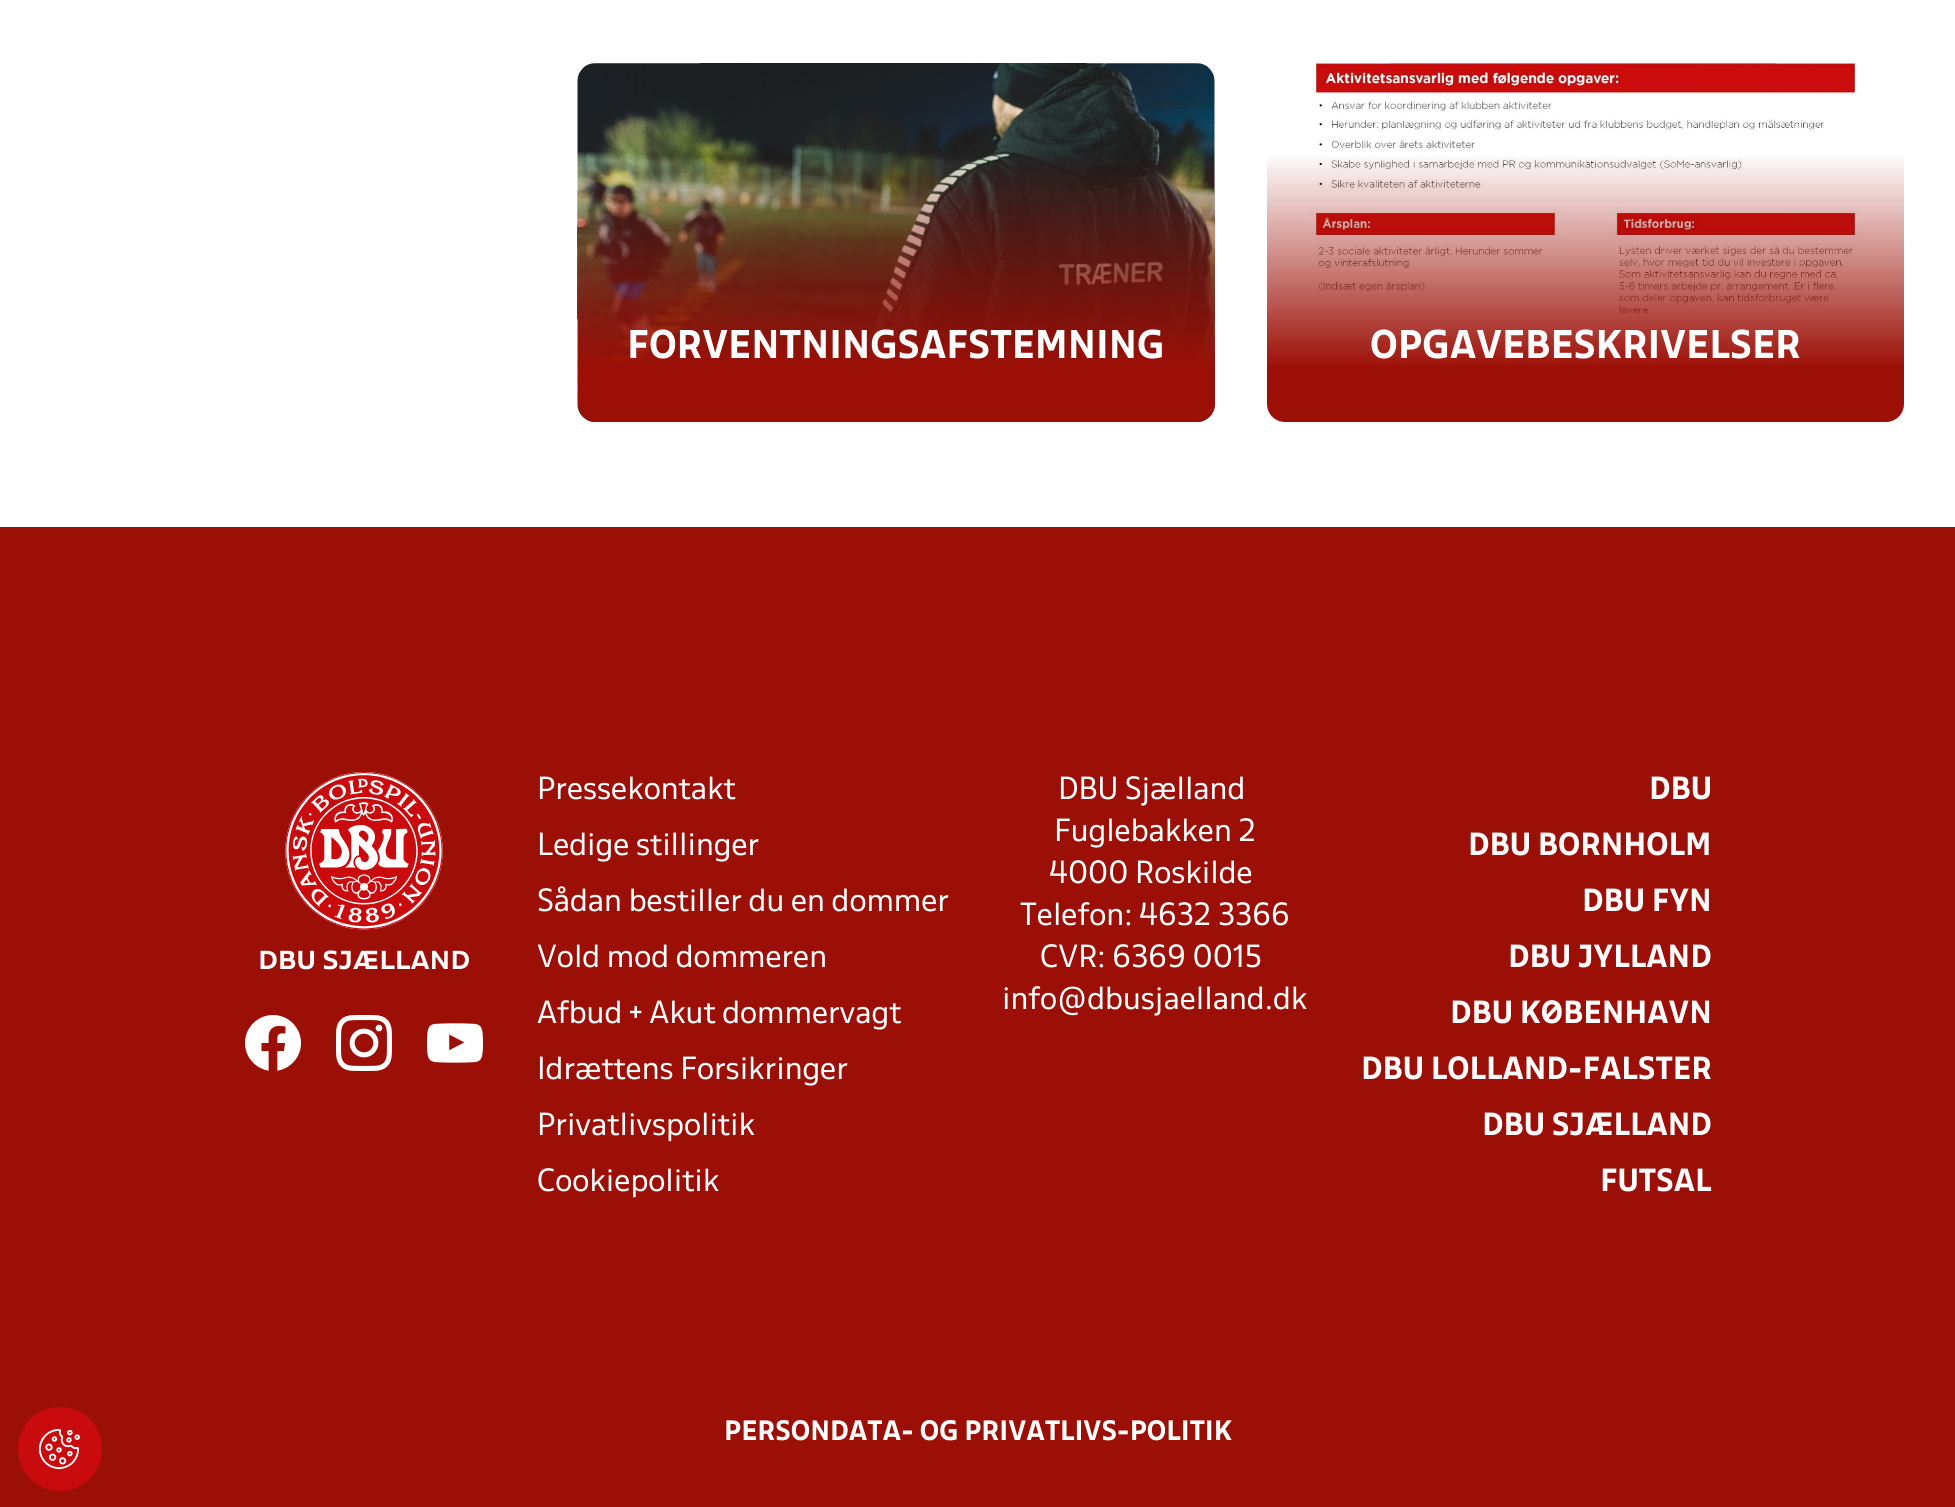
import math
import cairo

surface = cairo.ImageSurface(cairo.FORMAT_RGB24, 1955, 1507)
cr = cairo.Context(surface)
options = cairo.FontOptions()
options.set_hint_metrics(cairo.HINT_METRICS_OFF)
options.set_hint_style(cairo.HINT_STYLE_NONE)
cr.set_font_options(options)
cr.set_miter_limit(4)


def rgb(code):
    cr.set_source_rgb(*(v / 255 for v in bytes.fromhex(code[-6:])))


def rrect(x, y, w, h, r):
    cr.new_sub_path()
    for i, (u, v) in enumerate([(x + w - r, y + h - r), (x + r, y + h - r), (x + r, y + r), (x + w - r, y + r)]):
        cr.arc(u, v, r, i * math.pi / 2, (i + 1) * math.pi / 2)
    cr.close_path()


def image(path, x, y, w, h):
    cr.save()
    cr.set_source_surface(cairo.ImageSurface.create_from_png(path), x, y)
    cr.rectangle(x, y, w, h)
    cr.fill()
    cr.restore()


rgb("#ffffff")
cr.paint()
image("img/1.png", 577, 63, 638, 359)
gradient = cairo.LinearGradient(896, 63, 896, 422)
gradient.add_color_stop_rgba(0, 0.612, 0.059, 0.024, 0)
gradient.add_color_stop_rgba(0.25, 0.612, 0.059, 0.024, 0)
gradient.add_color_stop_rgba(0.85, 0.612, 0.059, 0.024, 1)
cr.set_source(gradient)
rrect(578, 63, 637, 359, 18)
cr.fill()
image("img/2.png", 1309, 63, 553, 304)
gradient = cairo.LinearGradient(1586, 63, 1586, 422)
gradient.add_color_stop_rgba(0, 0.612, 0.059, 0.024, 0)
gradient.add_color_stop_rgba(0.25, 0.612, 0.059, 0.024, 0)
gradient.add_color_stop_rgba(0.85, 0.612, 0.059, 0.024, 1)
cr.set_source(gradient)
rrect(1267, 63, 637, 359, 18)
cr.fill()
rgb("#9c0f06")
cr.rectangle(0, 527, 1955, 980)
cr.fill()
rgb("#c90b0e")
cr.arc(60, 1449, 42, 0, 2 * math.pi)
cr.fill()
image("img/3.png", 39, 1429, 41, 41)
image("img/4.png", 285, 772, 158, 158)
image("img/5.png", 245, 1015, 56, 56)
image("img/6.png", 336, 1015, 56, 56)
image("img/7.png", 427, 1023, 56, 40)
cr.select_font_face("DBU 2", cairo.FONT_SLANT_NORMAL, cairo.FONT_WEIGHT_BOLD)
cr.set_font_size(35)
rgb("#ffffff")
cr.move_to(627, 358)
cr.show_text("FORVENTNINGSAFSTEMNING")
cr.move_to(1370, 358)
cr.show_text("OPGAVEBESKRIVELSER")
cr.select_font_face("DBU", cairo.FONT_SLANT_NORMAL, cairo.FONT_WEIGHT_BOLD)
cr.set_font_size(22.75)
cr.move_to(258, 969)
cr.show_text("DBU SJÆLLAND")
cr.select_font_face("DBU")
cr.set_font_size(28)
for x, y, s in [
    (537, 799, "Pressekontakt"),
    (537, 855, "Ledige stillinger"),
    (537, 911, "Sådan bestiller du en dommer"),
    (537, 967, "Vold mod dommeren"),
    (537, 1023, "Afbud + Akut dommervagt"),
    (537, 1079, "Idrættens Forsikringer"),
    (537, 1135, "Privatlivspolitik"),
    (537, 1191, "Cookiepolitik"),
    (1058, 799, "DBU Sjælland"),
    (1054, 841, "Fuglebakken 2"),
    (1049, 883, "4000 Roskilde"),
    (1020, 925, "Telefon: 4632 3366"),
    (1040, 967, "CVR: 6369 0015"),
    (1002, 1009, "info@dbusjaelland.dk"),
]:
    cr.move_to(x, y)
    cr.show_text(s)
cr.select_font_face("DBU 2", cairo.FONT_SLANT_NORMAL, cairo.FONT_WEIGHT_BOLD)
for x, y, s in [
    (1649, 799, "DBU"),
    (1468, 855, "DBU BORNHOLM"),
    (1582, 911, "DBU FYN"),
    (1508, 967, "DBU JYLLAND"),
    (1450, 1023, "DBU KØBENHAVN"),
    (1361, 1079, "DBU LOLLAND-FALSTER"),
    (1482, 1135, "DBU SJÆLLAND"),
    (1600, 1191, "FUTSAL"),
]:
    cr.move_to(x, y)
    cr.show_text(s)
cr.set_font_size(24.5)
cr.move_to(724, 1440)
cr.show_text("PERSONDATA- OG PRIVATLIVS-POLITIK")
surface.write_to_png("page.png")
